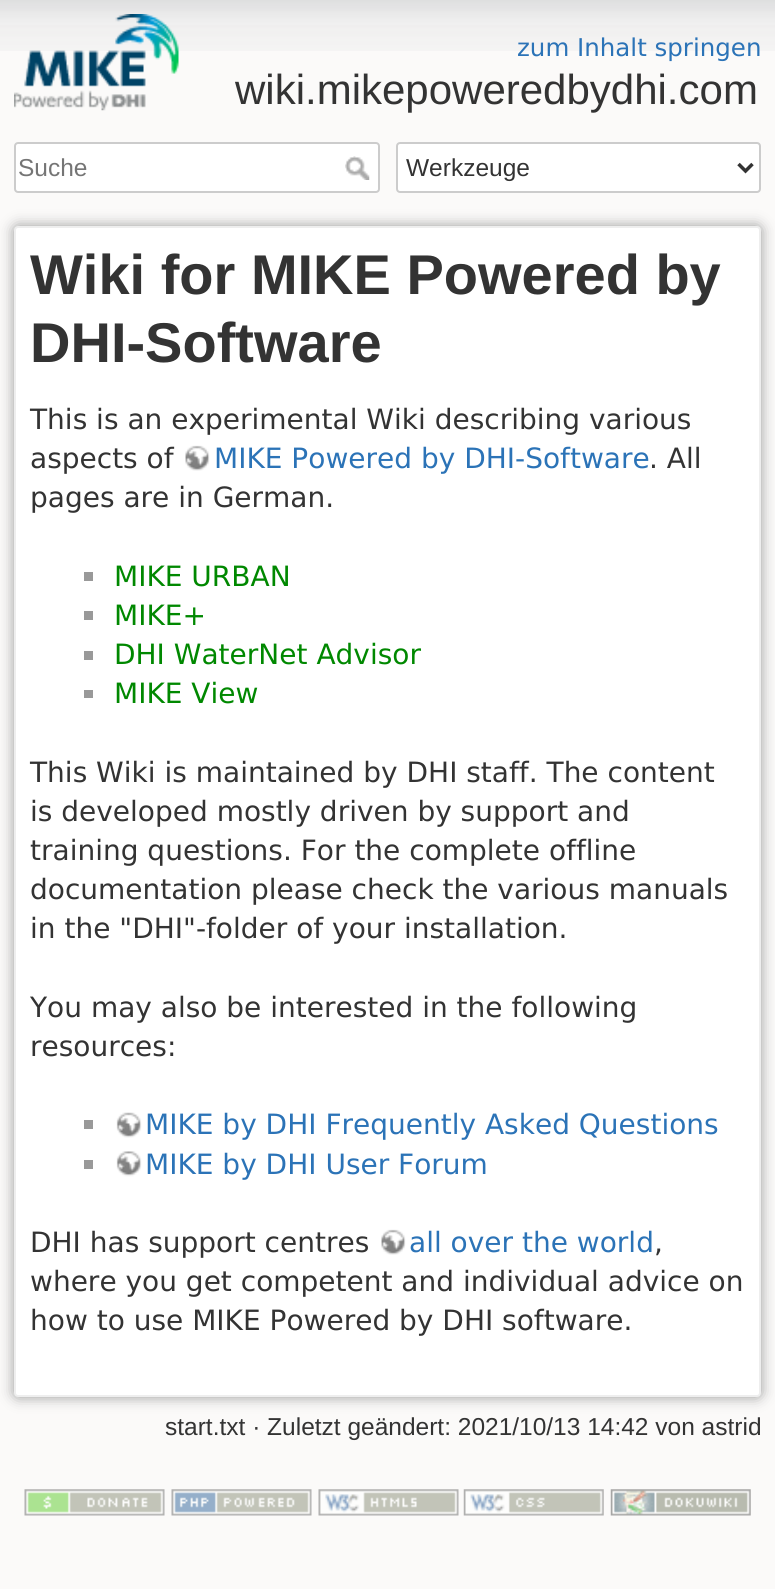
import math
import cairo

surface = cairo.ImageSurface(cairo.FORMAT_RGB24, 775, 1589)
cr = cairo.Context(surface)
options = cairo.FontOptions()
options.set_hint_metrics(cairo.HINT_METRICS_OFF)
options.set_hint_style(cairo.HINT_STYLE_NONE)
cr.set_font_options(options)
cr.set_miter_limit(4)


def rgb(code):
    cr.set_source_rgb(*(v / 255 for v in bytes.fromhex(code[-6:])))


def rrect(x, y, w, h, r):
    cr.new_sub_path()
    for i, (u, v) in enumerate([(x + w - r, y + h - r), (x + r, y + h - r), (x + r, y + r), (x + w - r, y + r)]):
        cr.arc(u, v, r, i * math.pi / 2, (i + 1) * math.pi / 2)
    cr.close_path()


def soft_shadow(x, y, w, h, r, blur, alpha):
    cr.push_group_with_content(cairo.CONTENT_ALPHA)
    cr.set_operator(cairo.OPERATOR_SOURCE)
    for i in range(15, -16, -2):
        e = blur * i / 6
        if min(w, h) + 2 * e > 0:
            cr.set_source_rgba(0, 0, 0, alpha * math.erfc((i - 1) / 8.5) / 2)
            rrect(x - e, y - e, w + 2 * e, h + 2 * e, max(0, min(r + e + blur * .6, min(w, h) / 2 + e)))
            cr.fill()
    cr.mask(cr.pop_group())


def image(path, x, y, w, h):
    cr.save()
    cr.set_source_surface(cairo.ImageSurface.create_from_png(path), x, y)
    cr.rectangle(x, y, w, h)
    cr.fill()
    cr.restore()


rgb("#fbfaf9")
cr.paint()
image("img/1.png", 0, 0, 775, 51)
image("img/2.png", 14, 14, 165, 97)
rgb("#ffffff")
rrect(15, 143, 364, 49, 3)
cr.fill_preserve()
rgb("#cccccc")
cr.stroke()
image("img/3.png", 345, 156, 25, 24)
rgb("#ffffff")
rrect(397, 143, 363, 49, 3)
cr.fill_preserve()
rgb("#cccccc")
cr.stroke()
cr.new_path()
cr.move_to(738.5, 164)
cr.line_to(745.5, 171)
cr.line_to(752.5, 164)
rgb("#333333")
cr.set_line_width(3.5)
cr.stroke()
rgb("#999999")
soft_shadow(14, 226, 747, 1171, 4, 7, 1)
rgb("#ffffff")
rrect(15, 227, 745, 1169, 3)
cr.fill_preserve()
rgb("#eeeeee")
cr.set_line_width(2)
cr.stroke()
image("img/4.png", 185, 445, 25, 26)
for x, y, w, h, color in [
    (84, 572, 9, 9, "#999999"),
    (84, 611, 9, 9, "#999999"),
    (84, 651, 9, 9, "#999999"),
    (84, 690, 9, 8, "#999999"),
    (84, 1120, 9, 9, "#999999"),
]:
    rgb(color)
    cr.rectangle(x, y, w, h)
    cr.fill()
image("img/5.png", 116, 1112, 26, 26)
cr.rectangle(84, 1160, 9, 9)
cr.fill()
image("img/6.png", 116, 1151, 26, 26)
image("img/4.png", 381, 1229, 25, 26)
image("img/7.png", 24, 1489, 141, 27)
image("img/8.png", 171, 1489, 141, 27)
image("img/9.png", 318, 1489, 141, 27)
image("img/10.png", 463, 1489, 141, 27)
image("img/11.png", 610, 1489, 141, 27)
cr.select_font_face("DejaVu Sans")
cr.set_font_size(24.5)
rgb("#2b73b7")
cr.move_to(517, 56)
cr.show_text("zum Inhalt springen")
cr.select_font_face("Liberation Sans")
cr.set_font_size(42)
rgb("#333333")
cr.move_to(235, 104)
cr.show_text("wiki.mikepoweredbydhi.com")
cr.set_font_size(24.5)
rgb("#757575")
cr.move_to(18, 176)
cr.show_text("Suche")
rgb("#333333")
cr.move_to(406, 176)
cr.show_text("Werkzeuge")
cr.select_font_face("Liberation Sans", cairo.FONT_SLANT_NORMAL, cairo.FONT_WEIGHT_BOLD)
cr.set_font_size(56)
cr.move_to(30, 294)
cr.show_text("Wiki for MIKE Powered by")
cr.move_to(30, 362)
cr.show_text("DHI-Software")
cr.select_font_face("DejaVu Sans")
cr.set_font_size(28)
cr.move_to(30, 429)
cr.show_text("This is an experimental Wiki describing various")
cr.move_to(30, 468)
cr.show_text("aspects of")
rgb("#2b73b7")
cr.move_to(214, 468)
cr.show_text("MIKE Powered by DHI-Software")
rgb("#333333")
cr.move_to(649, 468)
cr.show_text(". All")
cr.move_to(30, 507)
cr.show_text("pages are in German.")
rgb("#008800")
for x, y, s in [
    (114, 586, "MIKE URBAN"),
    (114, 625, "MIKE+"),
    (114, 664, "DHI WaterNet Advisor"),
    (114, 703, "MIKE View"),
]:
    cr.move_to(x, y)
    cr.show_text(s)
rgb("#333333")
for x, y, s in [
    (30, 782, "This Wiki is maintained by DHI staff. The content"),
    (30, 821, "is developed mostly driven by support and"),
    (30, 860, "training questions. For the complete offline"),
    (30, 899, "documentation please check the various manuals"),
    (30, 938, "in the \"DHI\"-folder of your installation."),
    (30, 1017, "You may also be interested in the following"),
    (30, 1056, "resources:"),
]:
    cr.move_to(x, y)
    cr.show_text(s)
rgb("#2b73b7")
cr.move_to(145, 1134)
cr.show_text("MIKE by DHI Frequently Asked Questions")
cr.move_to(145, 1174)
cr.show_text("MIKE by DHI User Forum")
rgb("#333333")
cr.move_to(30, 1252)
cr.show_text("DHI has support centres")
rgb("#2b73b7")
cr.move_to(409, 1252)
cr.show_text("all over the world")
rgb("#333333")
for x, y, s in [
    (654, 1252, ","),
    (30, 1291, "where you get competent and individual advice on"),
    (30, 1330, "how to use MIKE Powered by DHI software."),
]:
    cr.move_to(x, y)
    cr.show_text(s)
cr.select_font_face("Liberation Sans")
cr.set_font_size(24.5)
cr.move_to(165, 1435)
cr.show_text("start.txt · Zuletzt geändert: 2021/10/13 14:42 von astrid")
surface.write_to_png("page.png")
